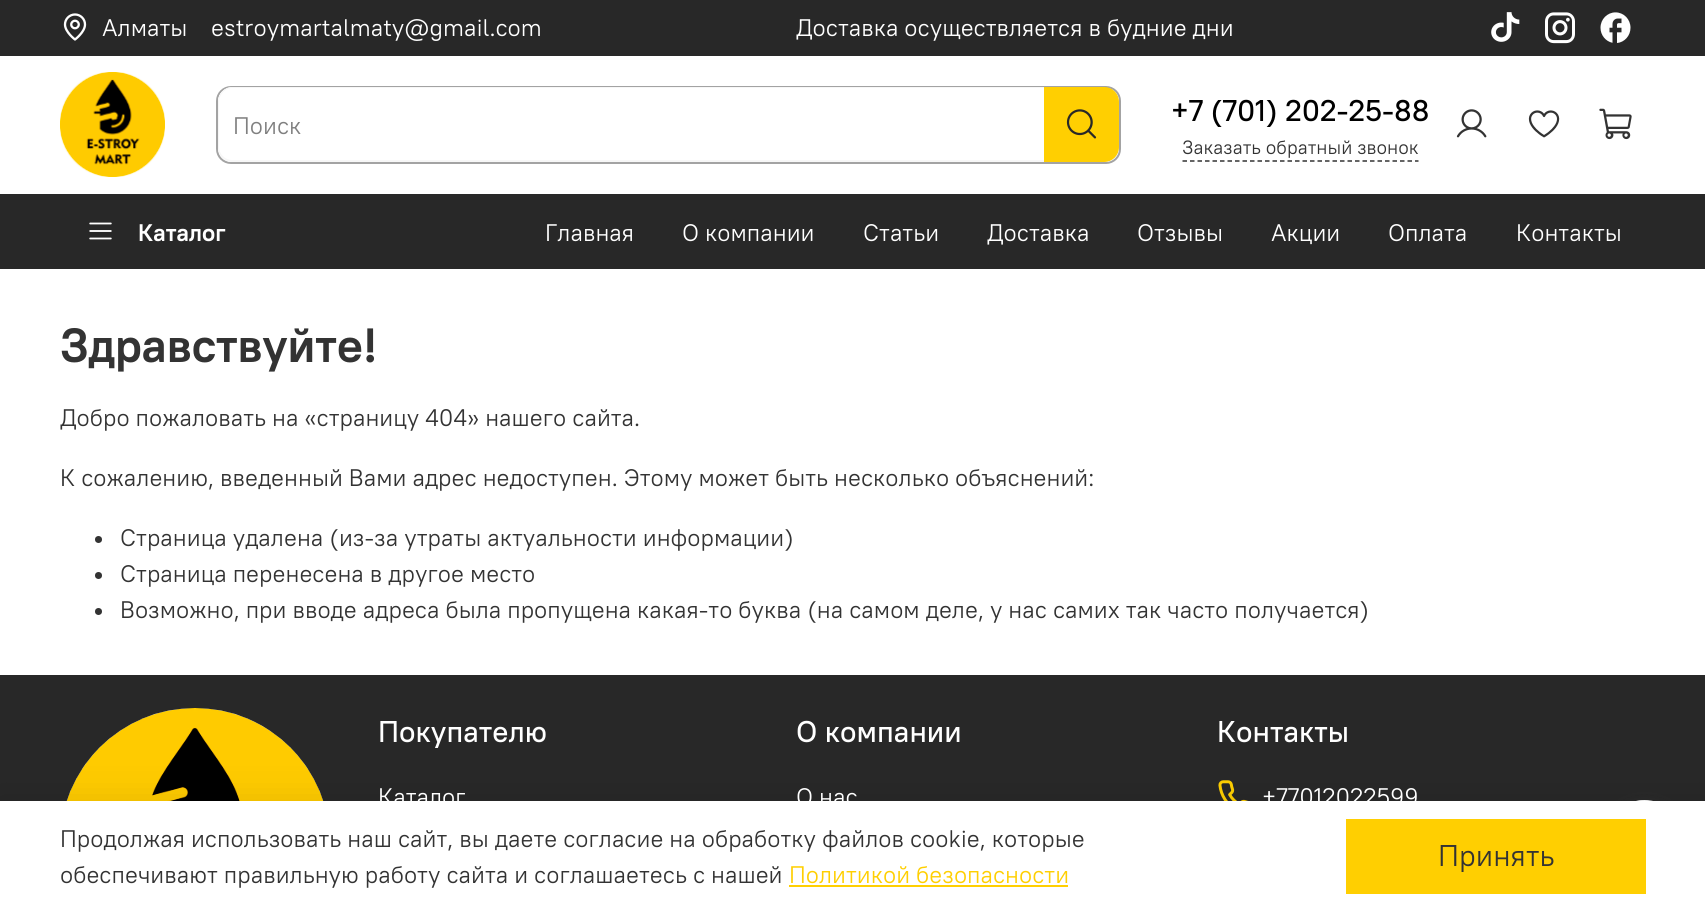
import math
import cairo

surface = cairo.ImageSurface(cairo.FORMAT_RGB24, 1705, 910)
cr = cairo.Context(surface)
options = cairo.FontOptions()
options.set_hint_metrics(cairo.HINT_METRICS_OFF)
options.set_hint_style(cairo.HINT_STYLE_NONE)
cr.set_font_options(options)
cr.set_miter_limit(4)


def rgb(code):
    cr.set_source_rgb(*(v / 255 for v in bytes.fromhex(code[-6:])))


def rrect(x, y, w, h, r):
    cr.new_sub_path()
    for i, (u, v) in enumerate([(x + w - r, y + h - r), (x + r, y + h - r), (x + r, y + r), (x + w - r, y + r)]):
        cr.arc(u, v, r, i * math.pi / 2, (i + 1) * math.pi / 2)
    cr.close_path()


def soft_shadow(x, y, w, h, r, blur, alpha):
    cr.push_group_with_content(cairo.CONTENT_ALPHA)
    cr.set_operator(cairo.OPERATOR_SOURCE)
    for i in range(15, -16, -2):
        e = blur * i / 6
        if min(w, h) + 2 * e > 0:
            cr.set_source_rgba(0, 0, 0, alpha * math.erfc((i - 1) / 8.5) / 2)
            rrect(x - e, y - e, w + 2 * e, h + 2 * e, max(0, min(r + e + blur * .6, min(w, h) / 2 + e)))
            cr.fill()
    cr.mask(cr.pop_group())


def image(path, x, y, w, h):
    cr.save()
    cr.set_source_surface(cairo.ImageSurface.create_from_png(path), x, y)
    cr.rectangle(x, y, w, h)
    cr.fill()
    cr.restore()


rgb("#ffffff")
cr.paint()
rgb("#282828")
cr.rectangle(0, 0, 1705, 56)
cr.fill()
image("img/1.png", 63, 13, 24, 28)
image("img/2.png", 1491, 12, 29, 30)
image("img/3.png", 1545, 12, 30, 32)
image("img/4.png", 1600, 12, 31, 31)
image("img/5.png", 60, 72, 105, 105)
rrect(217, 87, 903, 76, 14)
rgb("#a3a3a3")
cr.stroke()
rgb("#ffffff")
cr.new_path()
cr.move_to(233, 87)
cr.line_to(1044, 87)
cr.line_to(1044, 162)
cr.line_to(233, 162)
cr.curve_to(224.5, 162, 218, 155.5, 218, 147)
cr.line_to(218, 102)
cr.curve_to(218, 93.5, 224.5, 87, 233, 87)
cr.close_path()
cr.fill()
rgb("#f7f7f7")
cr.set_fill_rule(cairo.FILL_RULE_EVEN_ODD)
cr.new_path()
cr.move_to(232, 87)
cr.line_to(1044, 87)
cr.line_to(1044, 162)
cr.line_to(232, 162)
cr.curve_to(224, 162, 218, 155, 218, 147)
cr.line_to(218, 102)
cr.curve_to(218, 94, 224, 87, 232, 87)
cr.close_path()
cr.move_to(232, 88)
cr.line_to(1044, 88)
cr.line_to(1044, 160)
cr.line_to(232, 160)
cr.curve_to(225, 160, 219, 154, 219, 147)
cr.line_to(219, 102)
cr.curve_to(219, 95, 225, 88, 232, 88)
cr.close_path()
cr.fill()
rgb("#ffcf01")
cr.new_path()
cr.move_to(1044, 87)
cr.line_to(1104, 87)
cr.curve_to(1112.5, 87, 1119, 93.5, 1119, 102)
cr.line_to(1119, 147)
cr.curve_to(1119, 155.5, 1112.5, 162, 1104, 162)
cr.line_to(1044, 162)
cr.close_path()
cr.fill()
image("img/6.png", 1066, 109, 31, 30)
cr.new_path()
cr.move_to(1182.5, 161)
cr.line_to(1418.5, 161)
rgb("#333333")
cr.set_line_width(1.5)
cr.set_dash([4.5, 3])
cr.stroke()
image("img/7.png", 1456, 109, 31, 29)
image("img/8.png", 1528, 110, 32, 28)
image("img/9.png", 1599, 108, 33, 32)
rgb("#282828")
cr.rectangle(0, 194, 1705, 75)
cr.fill()
image("img/10.png", 89, 222, 23, 18)
rgb("#333333")
cr.arc(98.5, 539.5, 3.5, 0, 2 * math.pi)
cr.fill()
cr.arc(98.5, 575.5, 3.5, 0, 2 * math.pi)
cr.fill()
cr.arc(98.5, 611.5, 3.5, 0, 2 * math.pi)
cr.fill()
rgb("#282828")
cr.rectangle(0, 675, 1705, 126)
cr.fill()
image("img/11.png", 66, 708, 258, 93)
image("img/12.png", 1218, 780, 31, 21)
rgb("#5b5b5b")
soft_shadow(1607, 806, 75, 75, 37.5, 7.5, 0.25)
rgb("#ffffff")
cr.arc(1644.5, 837.5, 37.5, 0, 2 * math.pi)
cr.fill()
image("img/13.png", 1637, 800, 12, 1)
rgb("#000000")
soft_shadow(-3, 797, 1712, 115, 0, 17, 0.09)
for x, y, w, h, color in [
    (0, 801, 1705, 109, "#ffffff"),
    (789, 885, 279, 2, "#ffcf01"),
    (1346, 819, 300, 75, "#ffcf01"),
]:
    rgb(color)
    cr.rectangle(x, y, w, h)
    cr.fill()
cr.select_font_face("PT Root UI")
cr.set_font_size(24)
rgb("#ffffff")
for x, y, s in [
    (102, 36, "Алматы"),
    (211, 36, "estroymartalmaty@gmail.com"),
    (796, 36, "Доставка осуществляется в будние дни"),
]:
    cr.move_to(x, y)
    cr.show_text(s)
rgb("#808080")
cr.move_to(233, 134)
cr.show_text("Поиск")
cr.select_font_face("PT Root UI Medium")
cr.set_font_size(30)
rgb("#000000")
cr.move_to(1171, 121)
cr.show_text("+7 (701) 202-25-88")
cr.select_font_face("PT Root UI")
cr.set_font_size(19.25)
rgb("#333333")
cr.move_to(1182, 154)
cr.show_text("Заказать обратный звонок")
cr.select_font_face("PT Root UI", cairo.FONT_SLANT_NORMAL, cairo.FONT_WEIGHT_BOLD)
cr.set_font_size(24)
rgb("#ffffff")
cr.move_to(138, 241)
cr.show_text("Каталог")
cr.select_font_face("PT Root UI")
for x, y, s in [
    (545, 241, "Главная"),
    (682, 241, "О компании"),
    (863, 241, "Статьи"),
    (987, 241, "Доставка"),
    (1137, 241, "Отзывы"),
    (1271, 241, "Акции"),
    (1388, 241, "Оплата"),
    (1516, 241, "Контакты"),
]:
    cr.move_to(x, y)
    cr.show_text(s)
cr.select_font_face("PT Root UI", cairo.FONT_SLANT_NORMAL, cairo.FONT_WEIGHT_BOLD)
cr.set_font_size(48)
rgb("#333333")
cr.move_to(60, 362)
cr.show_text("Здравствуйте!")
cr.select_font_face("PT Root UI")
cr.set_font_size(24)
for x, y, s in [
    (60, 426, "Добро пожаловать на «страницу 404» нашего сайта."),
    (60, 486, "К сожалению, введенный Вами адрес недоступен. Этому может быть несколько объяснений:"),
    (120, 546, "Страница удалена (из-за утраты актуальности информации)"),
    (120, 582, "Страница перенесена в другое место"),
    (120, 618, "Возможно, при вводе адреса была пропущена какая-то буква (на самом деле, у нас самих так часто получается)"),
]:
    cr.move_to(x, y)
    cr.show_text(s)
cr.select_font_face("PT Root UI Medium")
cr.set_font_size(30)
rgb("#ffffff")
cr.move_to(378, 742)
cr.show_text("Покупателю")
cr.select_font_face("PT Root UI")
cr.set_font_size(24)
cr.move_to(378, 805)
cr.show_text("Каталог")
cr.select_font_face("PT Root UI Medium")
cr.set_font_size(30)
cr.move_to(796, 742)
cr.show_text("О компании")
cr.select_font_face("PT Root UI")
cr.set_font_size(24)
cr.move_to(796, 805)
cr.show_text("О нас")
cr.select_font_face("PT Root UI Medium")
cr.set_font_size(30)
cr.move_to(1217, 742)
cr.show_text("Контакты")
cr.select_font_face("PT Root UI")
cr.set_font_size(24)
cr.move_to(1262, 805)
cr.show_text("+77012022599")
rgb("#333333")
cr.move_to(60, 847)
cr.show_text("Продолжая использовать наш сайт, вы даете согласие на обработку файлов cookie, которые")
cr.move_to(60, 883)
cr.show_text("обеспечивают правильную работу сайта и соглашаетесь с нашей")
rgb("#ffcf01")
cr.move_to(789, 883)
cr.show_text("Политикой безопасности")
cr.set_font_size(30)
rgb("#333333")
cr.move_to(1438, 866)
cr.show_text("Принять")
surface.write_to_png("page.png")
